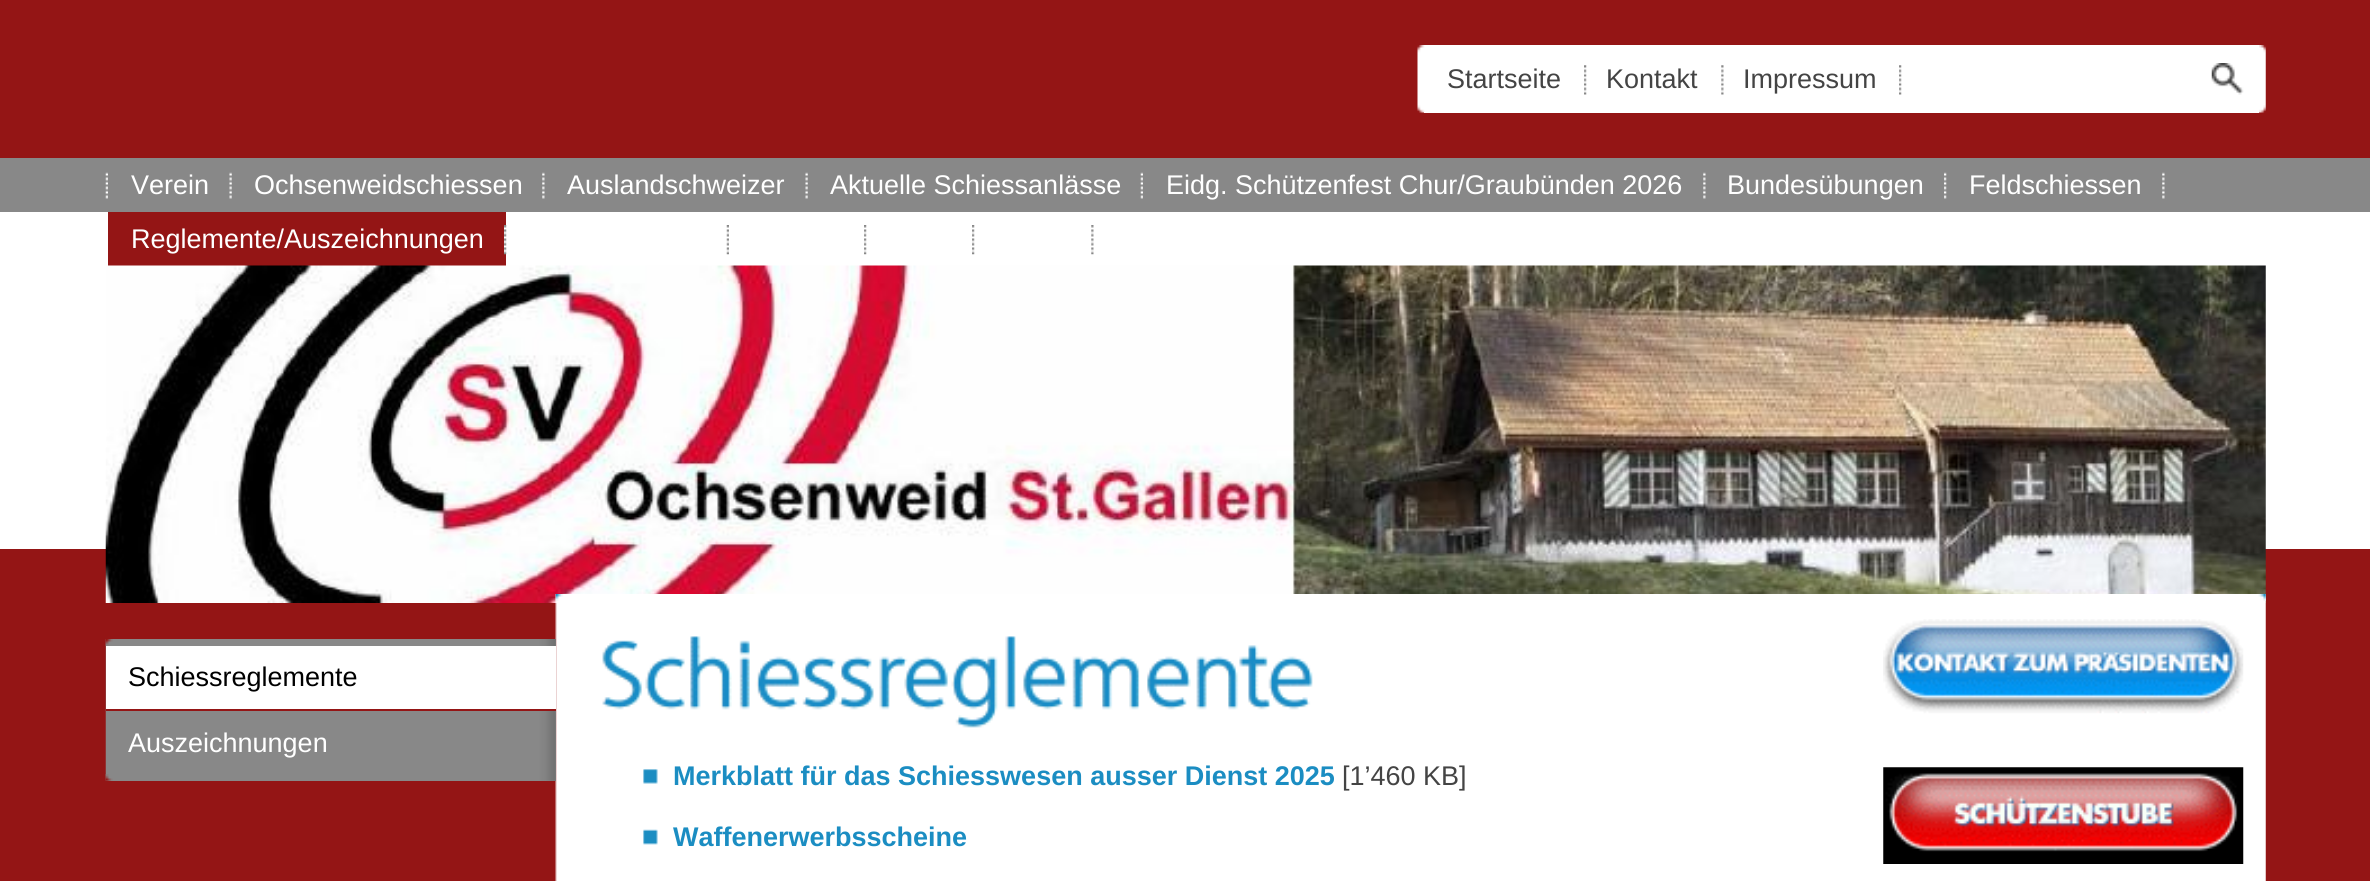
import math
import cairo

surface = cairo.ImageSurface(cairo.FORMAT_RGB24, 2370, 881)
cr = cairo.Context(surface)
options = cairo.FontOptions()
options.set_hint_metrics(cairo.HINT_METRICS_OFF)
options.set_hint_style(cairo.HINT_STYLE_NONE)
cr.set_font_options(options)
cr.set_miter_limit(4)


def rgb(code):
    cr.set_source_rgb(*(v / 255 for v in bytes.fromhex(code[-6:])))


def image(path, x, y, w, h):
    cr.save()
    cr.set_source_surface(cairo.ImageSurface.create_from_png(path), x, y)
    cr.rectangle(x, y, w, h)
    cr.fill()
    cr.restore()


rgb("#941515")
cr.paint()
rgb("#ffffff")
cr.rectangle(1424, 45, 835, 68)
cr.fill()
image("img/1.png", 1417, 45, 8, 68)
image("img/2.png", 1584, 65, 3, 30)
image("img/3.png", 1721, 65, 3, 30)
image("img/2.png", 1899, 65, 3, 30)
image("img/4.png", 2211, 63, 33, 32)
image("img/5.png", 2259, 45, 7, 68)
rgb("#888888")
cr.rectangle(0, 158, 2370, 54)
cr.fill()
image("img/6.png", 105, 172, 3, 27)
image("img/7.png", 229, 172, 3, 27)
image("img/8.png", 542, 172, 3, 27)
image("img/7.png", 805, 172, 3, 27)
image("img/6.png", 1140, 172, 3, 27)
image("img/8.png", 1703, 172, 3, 27)
image("img/9.png", 1944, 172, 3, 27)
image("img/8.png", 2162, 172, 3, 27)
rgb("#ffffff")
cr.rectangle(0, 212, 2370, 337)
cr.fill()
rgb("#941515")
cr.rectangle(108, 212, 398, 54)
cr.fill()
image("img/10.png", 504, 225, 3, 30)
image("img/11.png", 726, 225, 3, 30)
image("img/12.png", 864, 225, 3, 30)
image("img/12.png", 972, 225, 3, 30)
image("img/13.png", 1091, 225, 3, 30)
image("img/14.png", 105, 265, 2161, 338)
image("img/15.png", 555, 594, 1711, 287)
image("img/16.png", 555, 594, 1711, 7)
rgb("#888888")
cr.rectangle(106, 639, 450, 142)
cr.fill()
image("img/17.png", 105, 639, 451, 142)
image("img/18.png", 105, 639, 8, 7)
rgb("#ffffff")
cr.rectangle(106, 646, 450, 63)
cr.fill()
rgb("#941515")
cr.rectangle(106, 709, 450, 2)
cr.fill()
image("img/19.png", 105, 774, 8, 7)
image("img/20.png", 1883, 619, 361, 95)
image("img/21.png", 1883, 767, 361, 97)
image("img/22.png", 602, 636, 711, 92)
image("img/23.png", 643, 769, 15, 15)
image("img/24.png", 643, 829, 15, 16)
cr.select_font_face("Liberation Sans")
cr.set_font_size(27)
rgb("#444444")
for x, y, s in [
    (1447, 88, "Startseite"),
    (1606, 88, "Kontakt"),
    (1743, 88, "Impressum"),
]:
    cr.move_to(x, y)
    cr.show_text(s)
rgb("#ffffff")
for x, y, s in [
    (131, 194, "Verein"),
    (254, 194, "Ochsenweidschiessen"),
    (567, 194, "Auslandschweizer"),
    (830, 194, "Aktuelle Schiessanlässe"),
    (1166, 194, "Eidg. Schützenfest Chur/Graubünden 2026"),
    (1727, 194, "Bundesübungen"),
    (1969, 194, "Feldschiessen"),
    (131, 248, "Reglemente/Auszeichnungen"),
]:
    cr.move_to(x, y)
    cr.show_text(s)
rgb("#000000")
cr.move_to(128, 686)
cr.show_text("Schiessreglemente")
rgb("#ffffff")
cr.move_to(128, 752)
cr.show_text("Auszeichnungen")
cr.select_font_face("Liberation Sans", cairo.FONT_SLANT_NORMAL, cairo.FONT_WEIGHT_BOLD)
rgb("#1b8dc2")
cr.move_to(673, 785)
cr.show_text("Merkblatt für das Schiesswesen ausser Dienst 2025")
cr.select_font_face("Liberation Sans")
rgb("#444444")
cr.move_to(1342, 785)
cr.show_text("[1’460 KB]")
cr.select_font_face("Liberation Sans", cairo.FONT_SLANT_NORMAL, cairo.FONT_WEIGHT_BOLD)
rgb("#1b8dc2")
cr.move_to(673, 846)
cr.show_text("Waffenerwerbsscheine")
surface.write_to_png("page.png")
